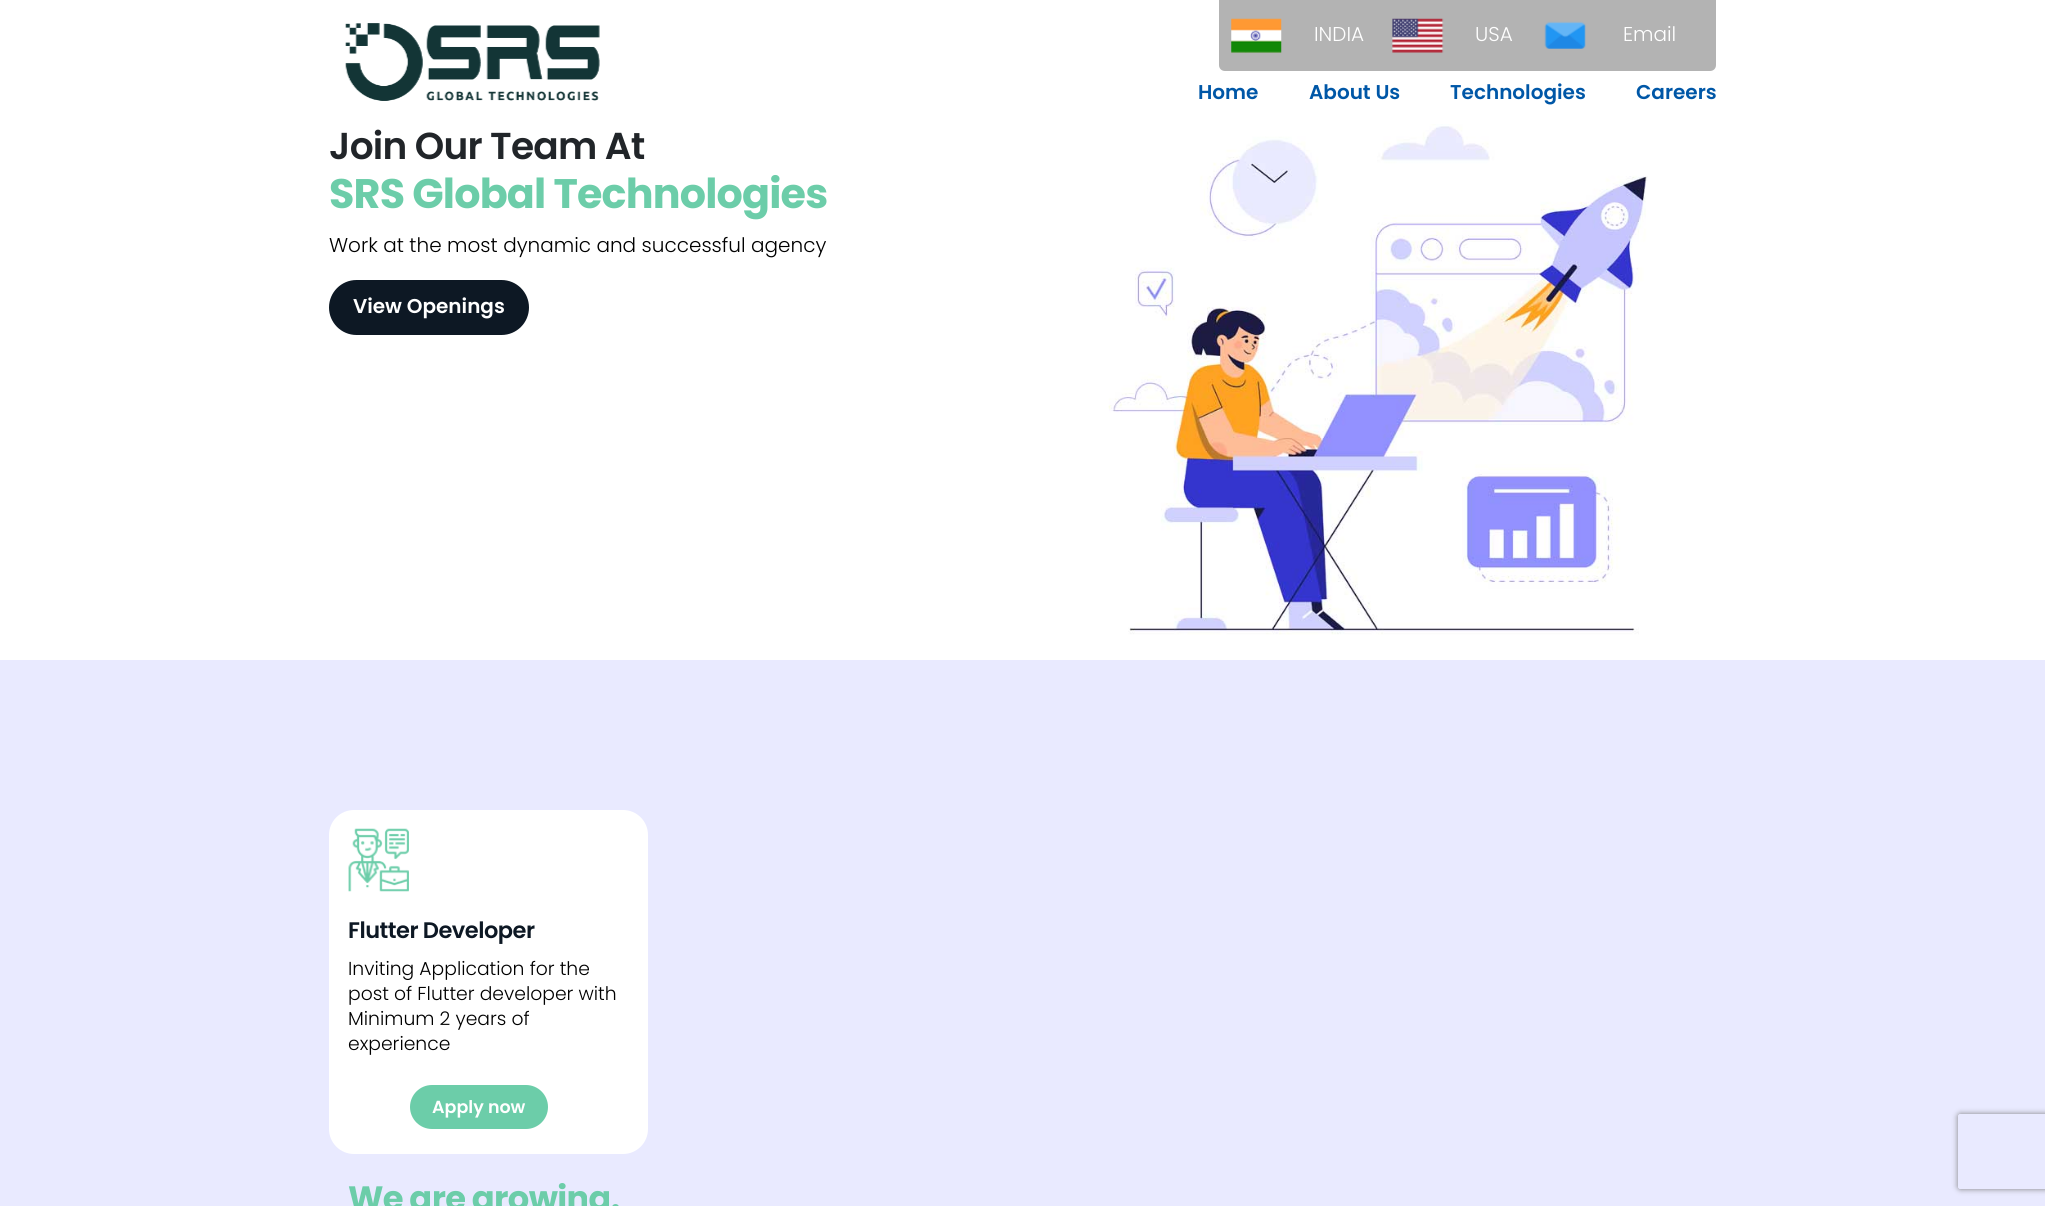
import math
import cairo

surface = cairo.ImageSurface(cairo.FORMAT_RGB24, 2045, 1206)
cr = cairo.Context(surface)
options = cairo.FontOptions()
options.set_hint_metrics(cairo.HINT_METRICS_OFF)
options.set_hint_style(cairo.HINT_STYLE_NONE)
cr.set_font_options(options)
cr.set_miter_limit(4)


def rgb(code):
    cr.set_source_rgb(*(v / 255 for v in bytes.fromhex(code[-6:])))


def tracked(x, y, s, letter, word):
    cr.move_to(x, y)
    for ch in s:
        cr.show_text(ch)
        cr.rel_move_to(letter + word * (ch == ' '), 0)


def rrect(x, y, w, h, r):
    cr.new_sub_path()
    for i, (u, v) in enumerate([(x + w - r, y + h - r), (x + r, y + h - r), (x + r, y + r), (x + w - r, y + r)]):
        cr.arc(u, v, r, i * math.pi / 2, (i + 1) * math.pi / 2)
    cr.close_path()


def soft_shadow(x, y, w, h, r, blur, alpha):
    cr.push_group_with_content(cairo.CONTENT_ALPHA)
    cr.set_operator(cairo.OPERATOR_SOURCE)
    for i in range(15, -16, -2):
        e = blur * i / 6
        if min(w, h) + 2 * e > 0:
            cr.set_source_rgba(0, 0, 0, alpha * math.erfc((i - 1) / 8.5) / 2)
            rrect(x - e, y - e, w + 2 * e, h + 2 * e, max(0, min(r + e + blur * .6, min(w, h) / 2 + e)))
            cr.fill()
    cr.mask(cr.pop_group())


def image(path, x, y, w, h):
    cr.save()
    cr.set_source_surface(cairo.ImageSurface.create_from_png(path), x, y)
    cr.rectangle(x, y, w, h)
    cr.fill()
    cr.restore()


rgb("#ffffff")
cr.paint()
image("img/1.png", 345, 23, 255, 78)
rgb("#b3b3b3")
cr.new_path()
cr.move_to(1219, 0)
cr.line_to(1716, 0)
cr.line_to(1716, 65)
cr.curve_to(1716, 68.5, 1713.5, 71, 1710, 71)
cr.line_to(1225, 71)
cr.curve_to(1221.5, 71, 1219, 68.5, 1219, 65)
cr.close_path()
cr.fill()
image("img/2.png", 1231, 18, 51, 35)
image("img/3.png", 1392, 18, 52, 35)
image("img/4.png", 1544, 21, 42, 28)
rgb("#0d1824")
rrect(329, 280, 200, 55, 27.5)
cr.fill()
image("img/5.png", 1108, 124, 540, 511)
rgb("#e9eaff")
cr.rectangle(0, 660, 2045, 546)
cr.fill()
rgb("#ffffff")
rrect(329, 810, 319, 344, 25)
cr.fill()
image("img/6.png", 348, 828, 61, 64)
rgb("#6ccda9")
rrect(410, 1085, 138, 44, 22)
cr.fill()
cr.save()
cr.set_fill_rule(cairo.FILL_RULE_EVEN_ODD)
cr.new_path()
cr.move_to(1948, 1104)
cr.line_to(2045, 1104)
cr.line_to(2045, 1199)
cr.line_to(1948, 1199)
cr.close_path()
cr.move_to(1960.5, 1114)
cr.line_to(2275.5, 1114)
cr.curve_to(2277, 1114, 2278, 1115, 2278, 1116.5)
cr.line_to(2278, 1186.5)
cr.curve_to(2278, 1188, 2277, 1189, 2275.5, 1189)
cr.line_to(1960.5, 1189)
cr.curve_to(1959, 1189, 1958, 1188, 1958, 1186.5)
cr.line_to(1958, 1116.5)
cr.curve_to(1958, 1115, 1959, 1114, 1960.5, 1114)
cr.close_path()
cr.clip()
rgb("#808080")
soft_shadow(1958, 1114, 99, 75, 2.5, 3, 1)
cr.restore()
cr.select_font_face("Poppins Light")
cr.set_font_size(20)
rgb("#ffffff")
for x, y, s in [
    (1314, 41, "INDIA"),
    (1475, 41, "USA"),
    (1623, 41, "Email"),
]:
    cr.move_to(x, y)
    cr.show_text(s)
cr.select_font_face("Poppins SemiBold")
rgb("#0057a7")
for x, y, s in [
    (1198, 99, "Home"),
    (1309, 99, "About Us"),
    (1450, 99, "Technologies"),
    (1636, 99, "Careers"),
]:
    cr.move_to(x, y)
    cr.show_text(s)
cr.set_font_size(37.5)
rgb("#212529")
tracked(329, 159, "Join Our Team At", -0.75, 0)
cr.select_font_face("Poppins", cairo.FONT_SLANT_NORMAL, cairo.FONT_WEIGHT_BOLD)
cr.set_font_size(41.25)
rgb("#6ccda9")
tracked(329, 208, "SRS Global Technologies", -0.8, 0)
cr.select_font_face("Poppins Light")
cr.set_font_size(20)
rgb("#000000")
cr.move_to(329, 252)
cr.show_text("Work at the most dynamic and successful agency")
cr.select_font_face("Poppins SemiBold")
rgb("#ffffff")
cr.move_to(353, 313)
cr.show_text("View Openings")
cr.set_font_size(22.5)
rgb("#0d1824")
tracked(348, 938, "Flutter Developer", -0.5, 0)
cr.select_font_face("Poppins Light")
cr.set_font_size(18.75)
rgb("#000000")
for x, y, s in [
    (348, 975, "Inviting Application for the"),
    (348, 1000, "post of Flutter developer with"),
    (348, 1025, "Minimum 2 years of"),
    (348, 1050, "experience"),
]:
    cr.move_to(x, y)
    cr.show_text(s)
cr.select_font_face("Poppins SemiBold")
cr.set_font_size(17.5)
rgb("#ffffff")
cr.move_to(432, 1113)
cr.show_text("Apply now")
cr.select_font_face("Poppins", cairo.FONT_SLANT_NORMAL, cairo.FONT_WEIGHT_BOLD)
cr.set_font_size(33.75)
rgb("#6ccda9")
tracked(348, 1210, "We are growing.", -0.7, 0)
surface.write_to_png("page.png")
